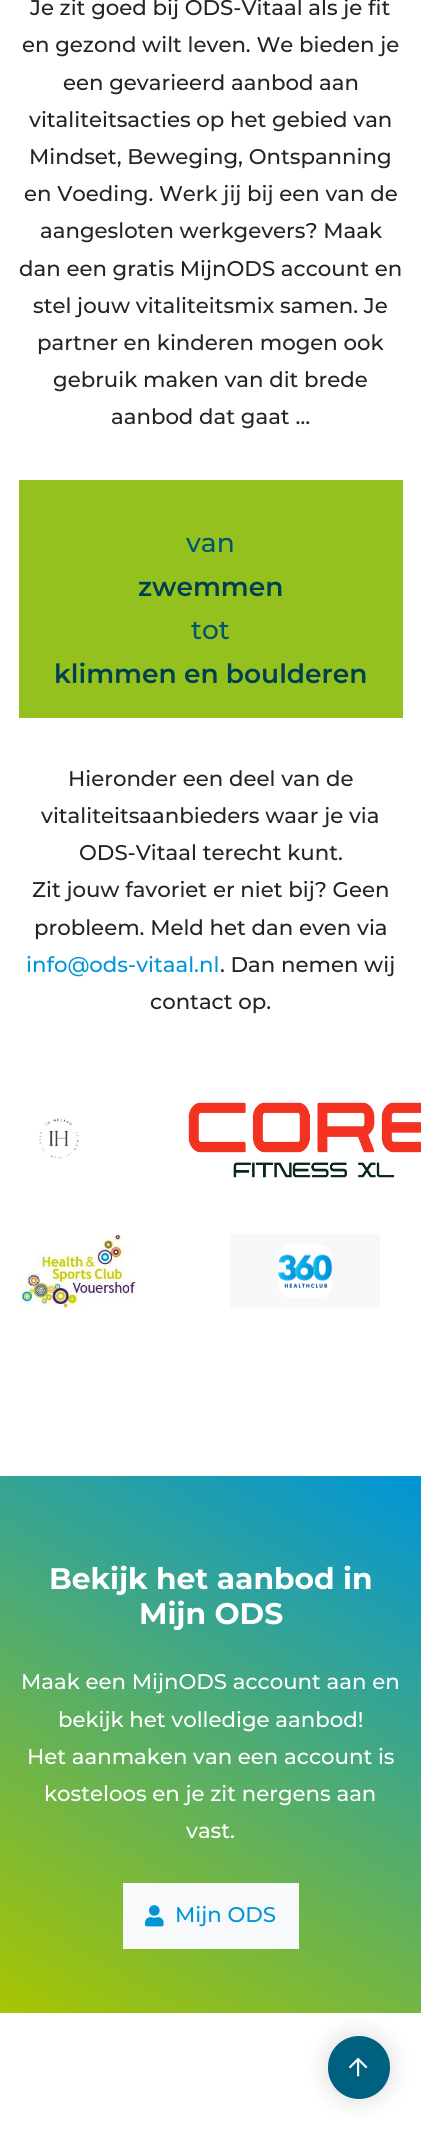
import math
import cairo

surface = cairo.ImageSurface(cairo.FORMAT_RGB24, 421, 2130)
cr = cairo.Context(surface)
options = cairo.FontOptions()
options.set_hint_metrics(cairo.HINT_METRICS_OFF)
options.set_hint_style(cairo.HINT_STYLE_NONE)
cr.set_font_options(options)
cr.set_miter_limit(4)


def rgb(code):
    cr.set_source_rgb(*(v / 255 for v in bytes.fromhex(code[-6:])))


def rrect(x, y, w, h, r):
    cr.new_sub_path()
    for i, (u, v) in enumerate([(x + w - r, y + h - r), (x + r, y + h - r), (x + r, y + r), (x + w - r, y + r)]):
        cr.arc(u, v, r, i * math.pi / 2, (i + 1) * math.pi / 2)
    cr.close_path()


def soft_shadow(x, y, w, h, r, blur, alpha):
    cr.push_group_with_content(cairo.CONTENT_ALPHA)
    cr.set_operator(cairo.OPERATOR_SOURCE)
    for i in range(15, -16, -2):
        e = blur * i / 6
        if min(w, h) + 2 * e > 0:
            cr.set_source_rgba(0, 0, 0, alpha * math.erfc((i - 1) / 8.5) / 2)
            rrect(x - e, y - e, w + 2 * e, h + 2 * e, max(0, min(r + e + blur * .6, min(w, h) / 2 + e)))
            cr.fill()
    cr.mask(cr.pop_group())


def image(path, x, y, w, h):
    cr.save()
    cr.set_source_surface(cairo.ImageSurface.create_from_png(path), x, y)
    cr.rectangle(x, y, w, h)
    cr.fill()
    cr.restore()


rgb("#ffffff")
cr.paint()
rgb("#95c11f")
cr.rectangle(19, 480, 384, 238)
cr.fill()
image("img/1.png", 39, 1118, 40, 41)
image("img/2.png", 188, 1102, 233, 76)
image("img/3.png", 21, 1234, 116, 75)
image("img/4.png", 230, 1234, 150, 75)
gradient = cairo.LinearGradient(379, 1452, 42, 2037)
gradient.add_color_stop_rgba(0, 0, 0.584, 0.847, 1)
gradient.add_color_stop_rgba(1, 0.659, 0.773, 0, 1)
cr.set_source(gradient)
cr.rectangle(0, 1476, 421, 537)
cr.fill()
rgb("#f8f9fa")
cr.rectangle(123, 1883, 176, 66)
cr.fill()
image("img/5.png", 145, 1905, 19, 22)
rgb("#000000")
soft_shadow(323, 2031, 72, 73, 36, 9.5, 0.1)
rgb("#006080")
rrect(328, 2036, 62, 63, 31)
cr.fill()
image("img/6.png", 348, 2057, 20, 20)
cr.select_font_face("Montserrat Medium")
cr.set_font_size(21.25)
rgb("#212529")
for x, y, s in [
    (30, 15, "Je zit goed bij ODS-Vitaal als je fit"),
    (22, 52, "en gezond wilt leven. We bieden je"),
    (63, 90, "een gevarieerd aanbod aan"),
    (29, 127, "vitaliteitsacties op het gebied van"),
    (29, 164, "Mindset, Beweging, Ontspanning"),
    (24, 201, "en Voeding. Werk jij bij een van de"),
    (40, 238, "aangesloten werkgevers? Maak"),
    (19, 276, "dan een gratis MijnODS account en"),
    (33, 313, "stel jouw vitaliteitsmix samen. Je"),
    (37, 350, "partner en kinderen mogen ook"),
    (53, 387, "gebruik maken van dit brede"),
    (111, 424, "aanbod dat gaat …"),
]:
    cr.move_to(x, y)
    cr.show_text(s)
cr.set_font_size(26.5)
rgb("#00566d")
cr.move_to(186, 552)
cr.show_text("van")
cr.select_font_face("Montserrat SemiBold")
rgb("#004050")
cr.move_to(138, 596)
cr.show_text("zwemmen")
cr.select_font_face("Montserrat Medium")
rgb("#00566d")
cr.move_to(191, 639)
cr.show_text("tot")
cr.select_font_face("Montserrat SemiBold")
rgb("#004050")
cr.move_to(54, 683)
cr.show_text("klimmen en boulderen")
cr.select_font_face("Montserrat Medium")
cr.set_font_size(21.25)
rgb("#212529")
for x, y, s in [
    (68, 786, "Hieronder een deel van de"),
    (41, 823, "vitaliteitsaanbieders waar je via"),
    (79, 860, "ODS-Vitaal terecht kunt."),
    (32, 897, "Zit jouw favoriet er niet bij? Geen"),
    (34, 935, "probleem. Meld het dan even via"),
]:
    cr.move_to(x, y)
    cr.show_text(s)
rgb("#0095d8")
cr.move_to(26, 972)
cr.show_text("info@ods-vitaal.nl")
rgb("#212529")
cr.move_to(220, 972)
cr.show_text(". Dan nemen wij")
cr.move_to(150, 1009)
cr.show_text("contact op.")
cr.select_font_face("Montserrat", cairo.FONT_SLANT_NORMAL, cairo.FONT_WEIGHT_BOLD)
cr.set_font_size(29.75)
rgb("#ffffff")
cr.move_to(49, 1589)
cr.show_text("Bekijk het aanbod in")
cr.move_to(139, 1624)
cr.show_text("Mijn ODS")
cr.select_font_face("Montserrat Medium")
cr.set_font_size(21.25)
for x, y, s in [
    (21, 1689, "Maak een MijnODS account aan en"),
    (58, 1727, "bekijk het volledige aanbod!"),
    (27, 1764, "Het aanmaken van een account is"),
    (44, 1801, "kosteloos en je zit nergens aan"),
    (186, 1838, "vast."),
]:
    cr.move_to(x, y)
    cr.show_text(s)
rgb("#0095d8")
cr.move_to(175, 1922)
cr.show_text("Mijn ODS")
surface.write_to_png("page.png")
